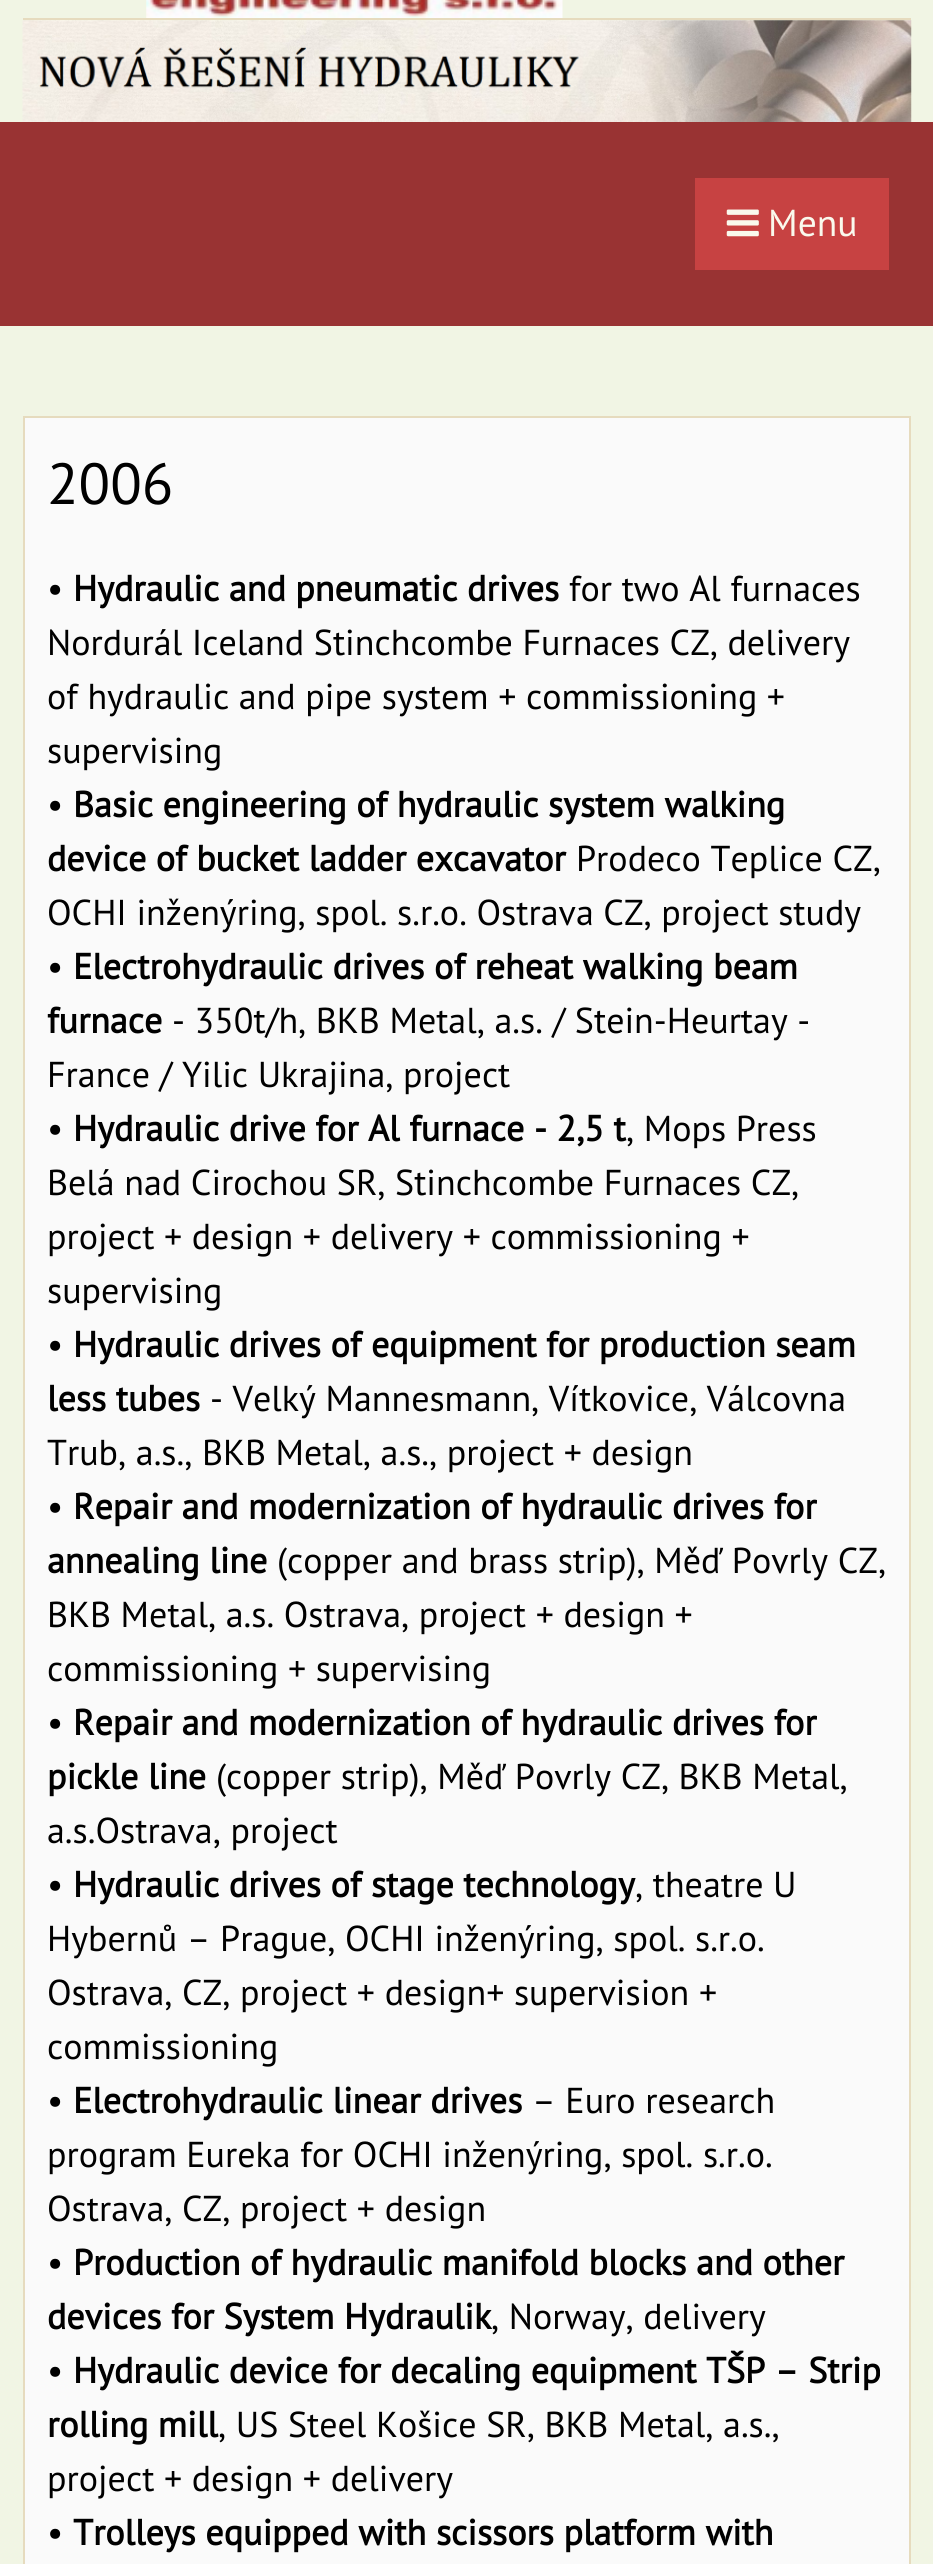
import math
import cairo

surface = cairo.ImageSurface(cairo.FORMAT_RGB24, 933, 2564)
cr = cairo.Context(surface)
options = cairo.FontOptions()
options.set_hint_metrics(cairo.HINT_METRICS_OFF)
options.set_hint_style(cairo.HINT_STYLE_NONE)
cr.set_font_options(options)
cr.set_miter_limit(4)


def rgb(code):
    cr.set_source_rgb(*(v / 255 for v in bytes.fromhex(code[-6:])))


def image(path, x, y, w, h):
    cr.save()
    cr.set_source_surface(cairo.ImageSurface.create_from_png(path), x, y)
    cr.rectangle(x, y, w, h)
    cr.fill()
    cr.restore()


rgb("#f1f5e4")
cr.paint()
image("img/1.png", 146, 0, 417, 18)
rgb("#e6dbbe")
cr.rectangle(23, 18, 888, 2)
cr.fill()
image("img/2.png", 22, 20, 890, 102)
rgb("#993333")
cr.rectangle(0, 122, 933, 204)
cr.fill()
rgb("#c74242")
cr.rectangle(695, 178, 194, 92)
cr.fill()
image("img/3.png", 726, 209, 33, 28)
rgb("#fafafa")
cr.rectangle(24, 417, 886, 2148)
cr.fill_preserve()
rgb("#e6dbbe")
cr.stroke()
cr.select_font_face("PT Sans")
cr.set_font_size(37.5)
rgb("#faf9ed")
cr.move_to(768, 236)
cr.show_text("Menu")
cr.set_font_size(58)
rgb("#000000")
cr.move_to(47, 504)
cr.show_text("2006")
cr.set_font_size(36)
cr.move_to(47, 601)
cr.show_text("•")
cr.select_font_face("PT Sans", cairo.FONT_SLANT_NORMAL, cairo.FONT_WEIGHT_BOLD)
cr.move_to(73, 601)
cr.show_text("Hydraulic and pneumatic drives")
cr.select_font_face("PT Sans")
for x, y, s in [
    (569, 601, "for two Al furnaces"),
    (47, 655, "Nordurál Iceland Stinchcombe Furnaces CZ, delivery"),
    (47, 709, "of hydraulic and pipe system + commissioning +"),
    (47, 763, "supervising"),
    (47, 817, "•"),
]:
    cr.move_to(x, y)
    cr.show_text(s)
cr.select_font_face("PT Sans", cairo.FONT_SLANT_NORMAL, cairo.FONT_WEIGHT_BOLD)
cr.move_to(73, 817)
cr.show_text("Basic engineering of hydraulic system walking")
cr.move_to(47, 871)
cr.show_text("device of bucket ladder excavator")
cr.select_font_face("PT Sans")
for x, y, s in [
    (576, 871, "Prodeco Teplice CZ,"),
    (47, 925, "OCHI inženýring, spol. s.r.o. Ostrava CZ, project study"),
    (47, 979, "•"),
]:
    cr.move_to(x, y)
    cr.show_text(s)
cr.select_font_face("PT Sans", cairo.FONT_SLANT_NORMAL, cairo.FONT_WEIGHT_BOLD)
cr.move_to(73, 979)
cr.show_text("Electrohydraulic drives of reheat walking beam")
cr.move_to(47, 1033)
cr.show_text("furnace")
cr.select_font_face("PT Sans")
for x, y, s in [
    (172, 1033, "- 350t/h, BKB Metal, a.s. / Stein-Heurtay -"),
    (47, 1087, "France / Yilic Ukrajina, project"),
    (47, 1141, "•"),
]:
    cr.move_to(x, y)
    cr.show_text(s)
cr.select_font_face("PT Sans", cairo.FONT_SLANT_NORMAL, cairo.FONT_WEIGHT_BOLD)
cr.move_to(73, 1141)
cr.show_text("Hydraulic drive for Al furnace - 2,5 t")
cr.select_font_face("PT Sans")
for x, y, s in [
    (626, 1141, ", Mops Press"),
    (47, 1195, "Belá nad Cirochou SR, Stinchcombe Furnaces CZ,"),
    (47, 1249, "project + design + delivery + commissioning +"),
    (47, 1303, "supervising"),
    (47, 1357, "•"),
]:
    cr.move_to(x, y)
    cr.show_text(s)
cr.select_font_face("PT Sans", cairo.FONT_SLANT_NORMAL, cairo.FONT_WEIGHT_BOLD)
cr.move_to(73, 1357)
cr.show_text("Hydraulic drives of equipment for production seam")
cr.move_to(47, 1411)
cr.show_text("less tubes")
cr.select_font_face("PT Sans")
for x, y, s in [
    (210, 1411, "- Velký Mannesmann, Vítkovice, Válcovna"),
    (47, 1465, "Trub, a.s., BKB Metal, a.s., project + design"),
    (47, 1519, "•"),
]:
    cr.move_to(x, y)
    cr.show_text(s)
cr.select_font_face("PT Sans", cairo.FONT_SLANT_NORMAL, cairo.FONT_WEIGHT_BOLD)
cr.move_to(73, 1519)
cr.show_text("Repair and modernization of hydraulic drives for")
cr.move_to(47, 1573)
cr.show_text("annealing line")
cr.select_font_face("PT Sans")
for x, y, s in [
    (277, 1573, "(copper and brass strip), Měď Povrly CZ,"),
    (47, 1627, "BKB Metal, a.s. Ostrava, project + design +"),
    (47, 1681, "commissioning + supervising"),
    (47, 1735, "•"),
]:
    cr.move_to(x, y)
    cr.show_text(s)
cr.select_font_face("PT Sans", cairo.FONT_SLANT_NORMAL, cairo.FONT_WEIGHT_BOLD)
cr.move_to(73, 1735)
cr.show_text("Repair and modernization of hydraulic drives for")
cr.move_to(47, 1789)
cr.show_text("pickle line")
cr.select_font_face("PT Sans")
for x, y, s in [
    (216, 1789, "(copper strip), Měď Povrly CZ, BKB Metal,"),
    (47, 1843, "a.s.Ostrava, project"),
    (47, 1897, "•"),
]:
    cr.move_to(x, y)
    cr.show_text(s)
cr.select_font_face("PT Sans", cairo.FONT_SLANT_NORMAL, cairo.FONT_WEIGHT_BOLD)
cr.move_to(73, 1897)
cr.show_text("Hydraulic drives of stage technology")
cr.select_font_face("PT Sans")
for x, y, s in [
    (635, 1897, ", theatre U"),
    (47, 1951, "Hybernů – Prague, OCHI inženýring, spol. s.r.o."),
    (47, 2005, "Ostrava, CZ, project + design+ supervision +"),
    (47, 2059, "commissioning"),
    (47, 2113, "•"),
]:
    cr.move_to(x, y)
    cr.show_text(s)
cr.select_font_face("PT Sans", cairo.FONT_SLANT_NORMAL, cairo.FONT_WEIGHT_BOLD)
cr.move_to(73, 2113)
cr.show_text("Electrohydraulic linear drives")
cr.select_font_face("PT Sans")
for x, y, s in [
    (532, 2113, "– Euro research"),
    (47, 2167, "program Eureka for OCHI inženýring, spol. s.r.o."),
    (47, 2221, "Ostrava, CZ, project + design"),
    (47, 2275, "•"),
]:
    cr.move_to(x, y)
    cr.show_text(s)
cr.select_font_face("PT Sans", cairo.FONT_SLANT_NORMAL, cairo.FONT_WEIGHT_BOLD)
cr.move_to(73, 2275)
cr.show_text("Production of hydraulic manifold blocks and other")
cr.move_to(47, 2329)
cr.show_text("devices for System Hydraulik")
cr.select_font_face("PT Sans")
cr.move_to(491, 2329)
cr.show_text(", Norway, delivery")
cr.move_to(47, 2383)
cr.show_text("•")
cr.select_font_face("PT Sans", cairo.FONT_SLANT_NORMAL, cairo.FONT_WEIGHT_BOLD)
cr.move_to(73, 2383)
cr.show_text("Hydraulic device for decaling equipment TŠP – Strip")
cr.move_to(47, 2437)
cr.show_text("rolling mill")
cr.select_font_face("PT Sans")
for x, y, s in [
    (218, 2437, ", US Steel Košice SR, BKB Metal, a.s.,"),
    (47, 2491, "project + design + delivery"),
    (47, 2545, "•"),
]:
    cr.move_to(x, y)
    cr.show_text(s)
cr.select_font_face("PT Sans", cairo.FONT_SLANT_NORMAL, cairo.FONT_WEIGHT_BOLD)
cr.move_to(73, 2545)
cr.show_text("Trolleys equipped with scissors platform with")
surface.write_to_png("page.png")
